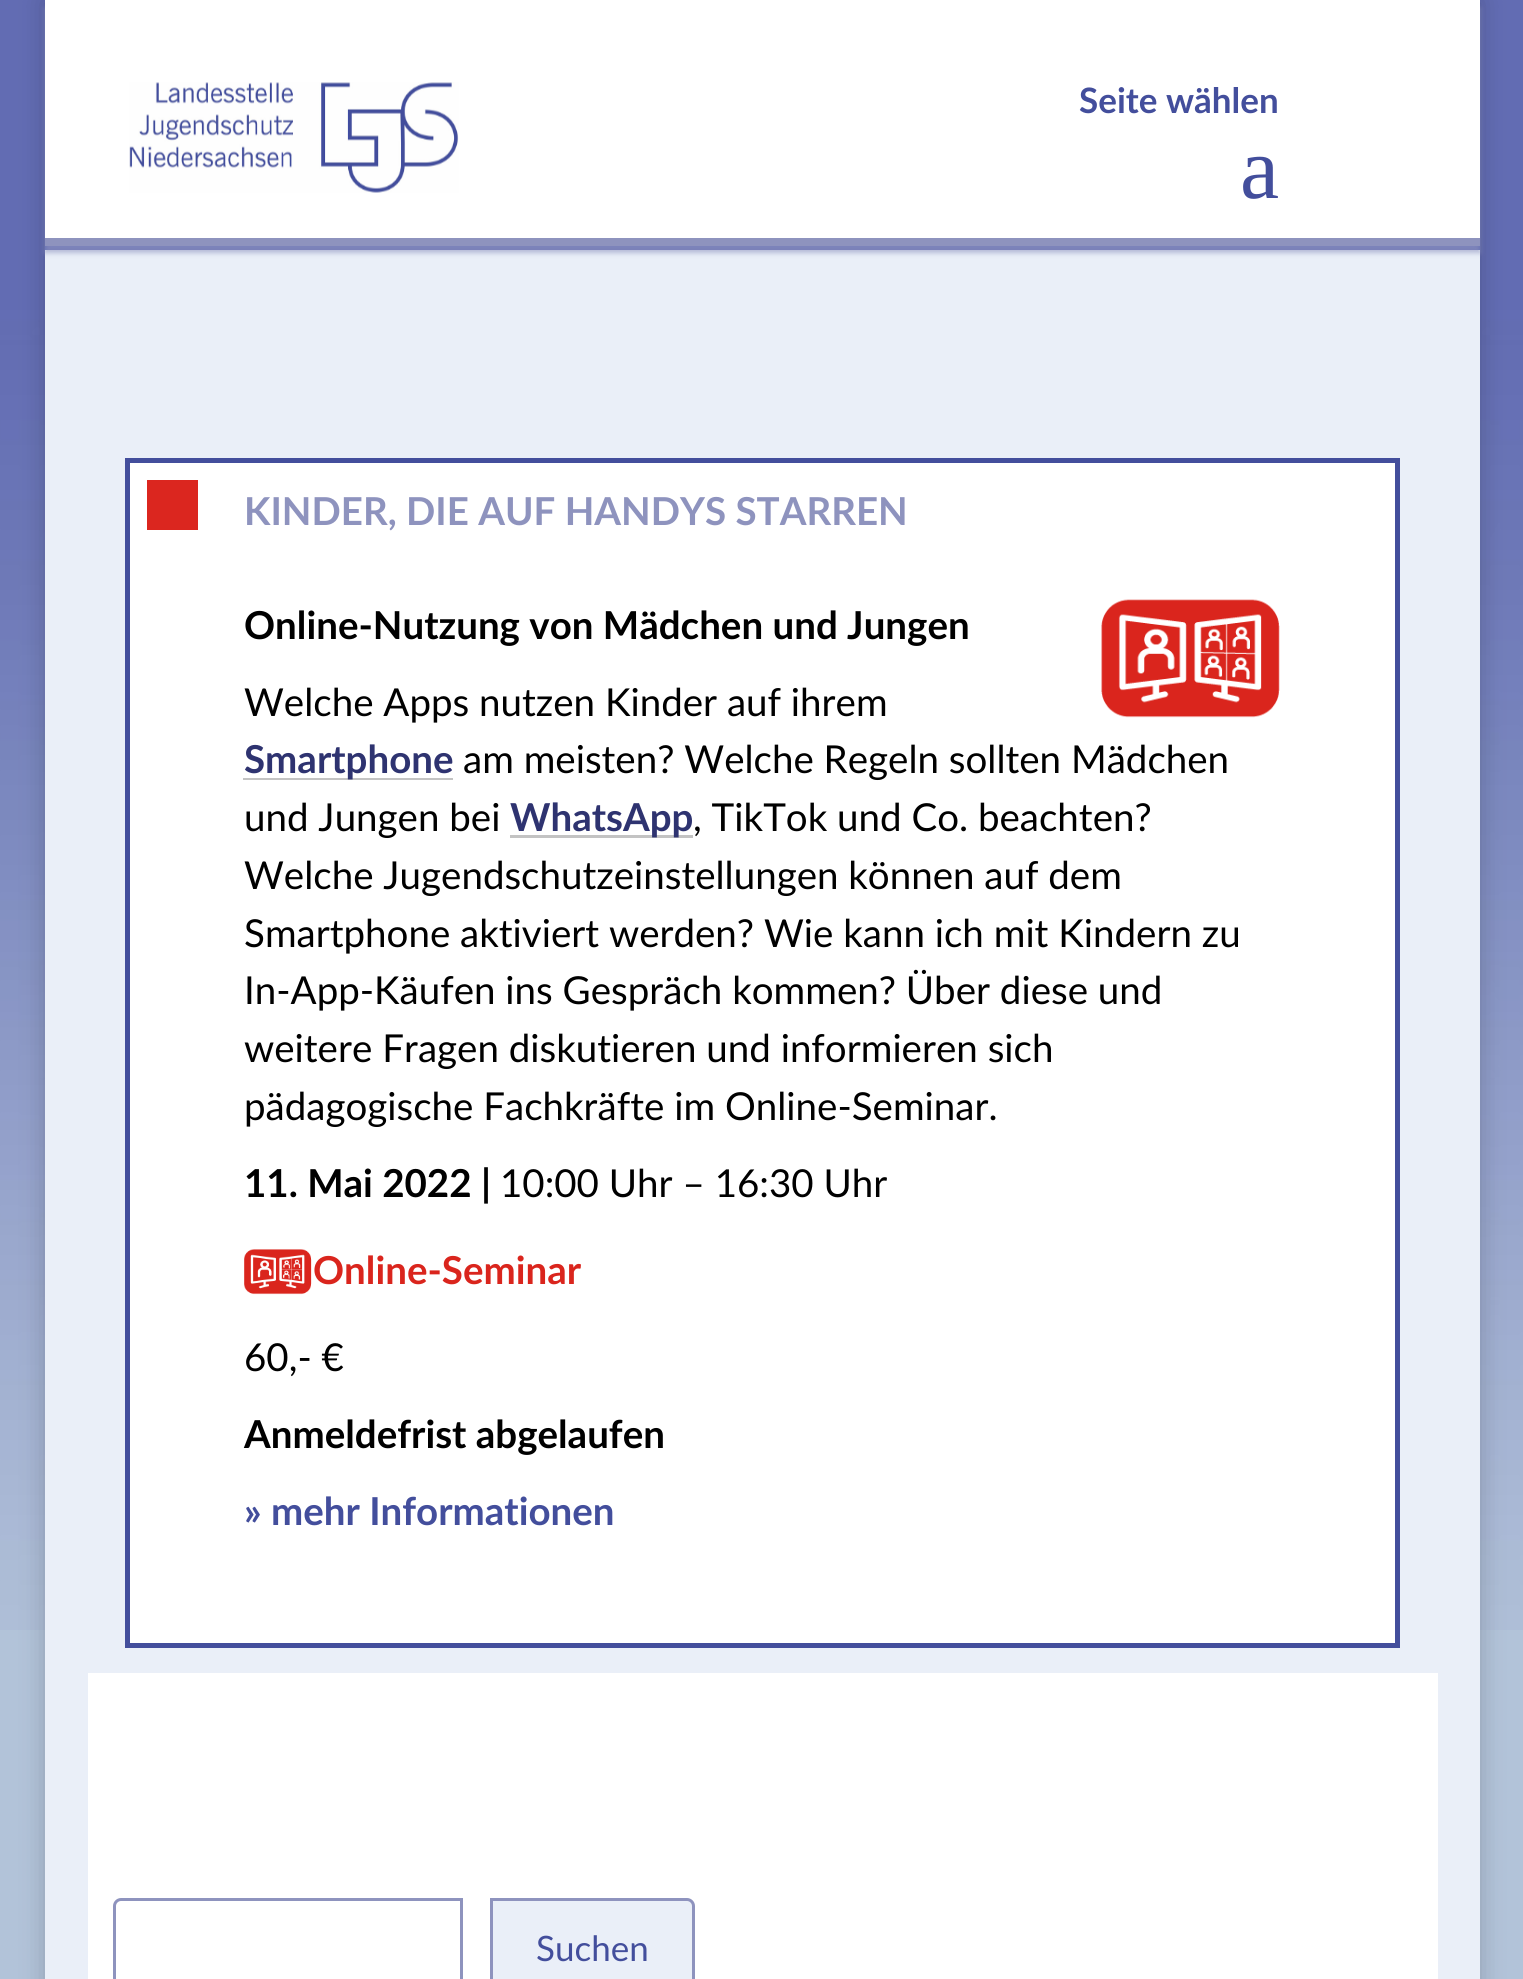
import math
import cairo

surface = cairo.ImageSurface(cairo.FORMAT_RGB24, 1523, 1979)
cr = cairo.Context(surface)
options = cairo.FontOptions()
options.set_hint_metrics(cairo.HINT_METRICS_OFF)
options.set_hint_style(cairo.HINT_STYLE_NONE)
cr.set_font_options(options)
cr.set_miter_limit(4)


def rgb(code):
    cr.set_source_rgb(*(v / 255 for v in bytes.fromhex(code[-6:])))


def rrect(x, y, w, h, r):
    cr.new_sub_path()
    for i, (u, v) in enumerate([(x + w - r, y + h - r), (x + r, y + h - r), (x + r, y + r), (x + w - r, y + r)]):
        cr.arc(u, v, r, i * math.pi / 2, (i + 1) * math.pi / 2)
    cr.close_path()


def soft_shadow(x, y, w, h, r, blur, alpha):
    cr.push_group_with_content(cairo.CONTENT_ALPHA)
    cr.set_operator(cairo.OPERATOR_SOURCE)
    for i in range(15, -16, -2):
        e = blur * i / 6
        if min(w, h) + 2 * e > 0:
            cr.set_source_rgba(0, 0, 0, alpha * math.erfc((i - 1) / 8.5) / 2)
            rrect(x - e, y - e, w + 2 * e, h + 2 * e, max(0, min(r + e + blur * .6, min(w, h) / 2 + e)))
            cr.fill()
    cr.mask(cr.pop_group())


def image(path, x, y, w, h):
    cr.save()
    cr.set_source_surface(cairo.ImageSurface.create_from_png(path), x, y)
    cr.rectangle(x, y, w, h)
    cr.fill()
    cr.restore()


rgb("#b2c3d9")
cr.paint()
image("img/1.png", 0, 0, 1523, 1630)
cr.save()
cr.set_fill_rule(cairo.FILL_RULE_EVEN_ODD)
cr.new_path()
cr.move_to(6, 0)
cr.line_to(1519, 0)
cr.line_to(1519, 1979)
cr.line_to(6, 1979)
cr.close_path()
cr.move_to(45, 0)
cr.line_to(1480, 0)
cr.line_to(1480, 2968)
cr.line_to(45, 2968)
cr.close_path()
cr.clip()
rgb("#000000")
soft_shadow(45, 0, 1435, 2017, 0, 12.5, 0.2)
cr.restore()
rgb("#eaeff8")
cr.rectangle(45, 250, 1435, 1729)
cr.fill()
rgb("#8e93be")
soft_shadow(45, 8, 1435, 245, 0, 2.5, 0.6)
rgb("#ffffff")
cr.rectangle(45, 0, 1435, 238)
cr.fill()
rgb("#8e93be")
cr.rectangle(45, 238, 1435, 8)
cr.fill()
image("img/2.png", 129, 82, 330, 111)
rgb("#ffffff")
cr.rectangle(130, 463, 1265, 1180)
cr.fill()
rgb("#db261f")
cr.rectangle(147, 480, 51, 50)
cr.fill()
cr.rectangle(127.5, 460.5, 1270, 1185)
rgb("#434e9c")
cr.set_line_width(5)
cr.stroke()
image("img/3.png", 1101, 599, 179, 119)
rgb("#c3c3c3")
cr.rectangle(243, 778, 210, 2)
cr.fill()
cr.rectangle(510, 835, 183, 3)
cr.fill()
image("img/4.png", 244, 1249, 68, 46)
rgb("#ffffff")
cr.rectangle(88, 1673, 1350, 306)
cr.fill()
cr.new_path()
cr.move_to(121, 1899.5)
cr.line_to(461.5, 1899.5)
cr.line_to(461.5, 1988.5)
cr.line_to(121, 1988.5)
cr.curve_to(117.5, 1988.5, 114.5, 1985.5, 114.5, 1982)
cr.line_to(114.5, 1906)
cr.curve_to(114.5, 1902.5, 117.5, 1899.5, 121, 1899.5)
cr.close_path()
rgb("#8e93be")
cr.set_line_width(3)
cr.stroke()
rgb("#eaeff8")
cr.new_path()
cr.move_to(491.5, 1899.5)
cr.line_to(687, 1899.5)
cr.curve_to(690.5, 1899.5, 693.5, 1902.5, 693.5, 1906)
cr.line_to(693.5, 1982)
cr.curve_to(693.5, 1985.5, 690.5, 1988.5, 687, 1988.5)
cr.line_to(491.5, 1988.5)
cr.close_path()
cr.fill_preserve()
rgb("#8e93be")
cr.stroke()
cr.select_font_face("Lato", cairo.FONT_SLANT_NORMAL, cairo.FONT_WEIGHT_BOLD)
cr.set_font_size(35)
rgb("#434e9c")
cr.move_to(1079, 113)
cr.show_text("Seite wählen")
cr.select_font_face("Liberation Serif")
cr.set_font_size(88)
cr.move_to(1240, 198)
cr.show_text("a")
cr.select_font_face("Lato", cairo.FONT_SLANT_NORMAL, cairo.FONT_WEIGHT_BOLD)
cr.set_font_size(38.5)
rgb("#8e93be")
cr.move_to(244, 525)
cr.show_text("KINDER, DIE AUF HANDYS STARREN")
rgb("#000000")
cr.move_to(244, 639)
cr.show_text("Online-Nutzung von Mädchen und Jungen")
cr.select_font_face("Lato")
cr.move_to(244, 716)
cr.show_text("Welche Apps nutzen Kinder auf ihrem")
cr.select_font_face("Lato", cairo.FONT_SLANT_NORMAL, cairo.FONT_WEIGHT_BOLD)
rgb("#2e3370")
cr.move_to(244, 773)
cr.show_text("Smartphone")
cr.select_font_face("Lato")
rgb("#000000")
cr.move_to(463, 773)
cr.show_text("am meisten? Welche Regeln sollten Mädchen")
cr.move_to(244, 831)
cr.show_text("und Jungen bei")
cr.select_font_face("Lato", cairo.FONT_SLANT_NORMAL, cairo.FONT_WEIGHT_BOLD)
rgb("#2e3370")
cr.move_to(510, 831)
cr.show_text("WhatsApp")
cr.select_font_face("Lato")
rgb("#000000")
for x, y, s in [
    (693, 831, ", TikTok und Co. beachten?"),
    (244, 889, "Welche Jugendschutzeinstellungen können auf dem"),
    (244, 947, "Smartphone aktiviert werden? Wie kann ich mit Kindern zu"),
    (244, 1004, "In-App-Käufen ins Gespräch kommen? Über diese und"),
    (244, 1062, "weitere Fragen diskutieren und informieren sich"),
    (244, 1120, "pädagogische Fachkräfte im Online-Seminar."),
]:
    cr.move_to(x, y)
    cr.show_text(s)
cr.select_font_face("Lato", cairo.FONT_SLANT_NORMAL, cairo.FONT_WEIGHT_BOLD)
cr.move_to(244, 1197)
cr.show_text("11. Mai 2022 |")
cr.select_font_face("Lato")
cr.move_to(500, 1197)
cr.show_text("10:00 Uhr – 16:30 Uhr")
cr.select_font_face("Lato", cairo.FONT_SLANT_NORMAL, cairo.FONT_WEIGHT_BOLD)
rgb("#da251d")
cr.move_to(313, 1284)
cr.show_text("Online-Seminar")
cr.select_font_face("Lato")
rgb("#000000")
cr.move_to(244, 1371)
cr.show_text("60,- €")
cr.select_font_face("Lato", cairo.FONT_SLANT_NORMAL, cairo.FONT_WEIGHT_BOLD)
cr.move_to(244, 1448)
cr.show_text("Anmeldefrist abgelaufen")
rgb("#434e9c")
cr.move_to(244, 1525)
cr.show_text("» mehr Informationen")
cr.select_font_face("Lato")
cr.set_font_size(35)
cr.move_to(536, 1961)
cr.show_text("Suchen")
surface.write_to_png("page.png")
